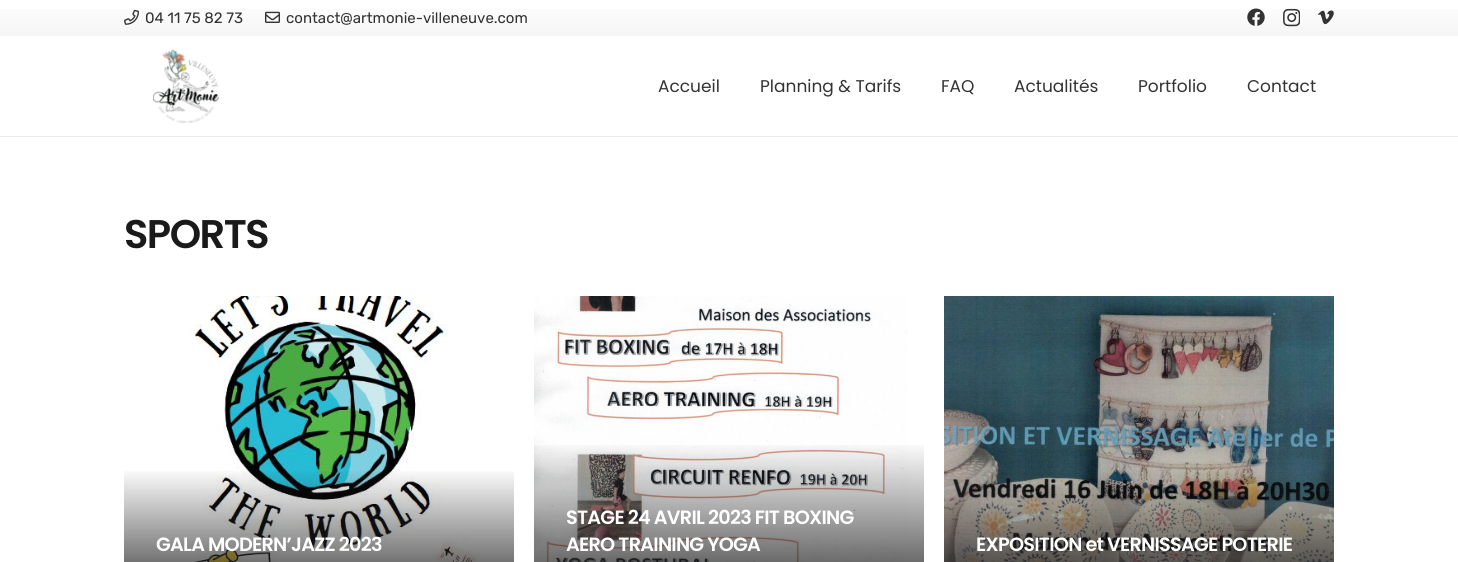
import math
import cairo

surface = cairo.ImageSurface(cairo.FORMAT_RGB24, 1458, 562)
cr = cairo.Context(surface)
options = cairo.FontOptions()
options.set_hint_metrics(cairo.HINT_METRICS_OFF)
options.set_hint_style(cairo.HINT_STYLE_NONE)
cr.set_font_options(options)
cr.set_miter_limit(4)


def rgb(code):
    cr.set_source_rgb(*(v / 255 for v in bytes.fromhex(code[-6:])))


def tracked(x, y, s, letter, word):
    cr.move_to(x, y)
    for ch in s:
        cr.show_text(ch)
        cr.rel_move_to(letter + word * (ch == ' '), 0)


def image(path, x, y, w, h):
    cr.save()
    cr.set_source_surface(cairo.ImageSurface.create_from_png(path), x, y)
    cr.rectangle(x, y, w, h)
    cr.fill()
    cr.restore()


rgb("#ffffff")
cr.paint()
gradient = cairo.LinearGradient(729, 36, 729, 0)
gradient.add_color_stop_rgba(0, 0.961, 0.961, 0.961, 1)
gradient.add_color_stop_rgba(1, 1, 1, 1, 1)
cr.set_source(gradient)
cr.rectangle(0, 9, 1458, 27)
cr.fill()
image("img/1.png", 124, 9, 15, 16)
image("img/2.png", 265, 11, 15, 12)
image("img/3.png", 1247, 8, 18, 18)
image("img/4.png", 1283, 8, 17, 19)
image("img/5.png", 1318, 10, 16, 15)
rgb("#ebebeb")
cr.rectangle(0, 136, 1458, 1)
cr.fill()
image("img/6.png", 153, 49, 67, 74)
image("img/7.png", 190, 296, 290, 266)
gradient = cairo.LinearGradient(319, 468, 319, 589)
gradient.add_color_stop_rgba(0, 0.118, 0.118, 0.118, 0)
gradient.add_color_stop_rgba(1, 0.118, 0.118, 0.118, 0.8)
cr.set_source(gradient)
cr.rectangle(124, 471, 390, 91)
cr.fill()
image("img/8.png", 534, 296, 374, 266)
gradient = cairo.LinearGradient(729, 441, 729, 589)
gradient.add_color_stop_rgba(0, 0.118, 0.118, 0.118, 0)
gradient.add_color_stop_rgba(1, 0.118, 0.118, 0.118, 0.8)
cr.set_source(gradient)
cr.rectangle(534, 445, 390, 117)
cr.fill()
image("img/9.png", 944, 296, 390, 266)
cr.select_font_face("Rubik")
cr.set_font_size(15)
rgb("#333333")
cr.move_to(145, 23)
cr.show_text("04 11 75 82 73")
cr.move_to(286, 23)
cr.show_text("contact@artmonie-villeneuve.com")
cr.select_font_face("Poppins")
cr.set_font_size(17)
for x, y, s in [
    (658, 92, "Accueil"),
    (760, 92, "Planning & Tarifs"),
    (941, 92, "FAQ"),
    (1014, 92, "Actualités"),
    (1138, 92, "Portfolio"),
    (1247, 92, "Contact"),
]:
    cr.move_to(x, y)
    cr.show_text(s)
cr.select_font_face("Poppins SemiBold")
cr.set_font_size(40)
rgb("#1a1a1a")
tracked(124, 248, "SPORTS", -1.5, 0)
cr.set_font_size(19.25)
rgb("#ffffff")
for x, y, s in [
    (156, 551, "GALA MODERN’JAZZ 2023"),
    (566, 524, "STAGE 24 AVRIL 2023 FIT BOXING"),
    (566, 551, "AERO TRAINING YOGA"),
    (976, 551, "EXPOSITION et VERNISSAGE POTERIE"),
]:
    tracked(x, y, s, -0.75, 0)
surface.write_to_png("page.png")
